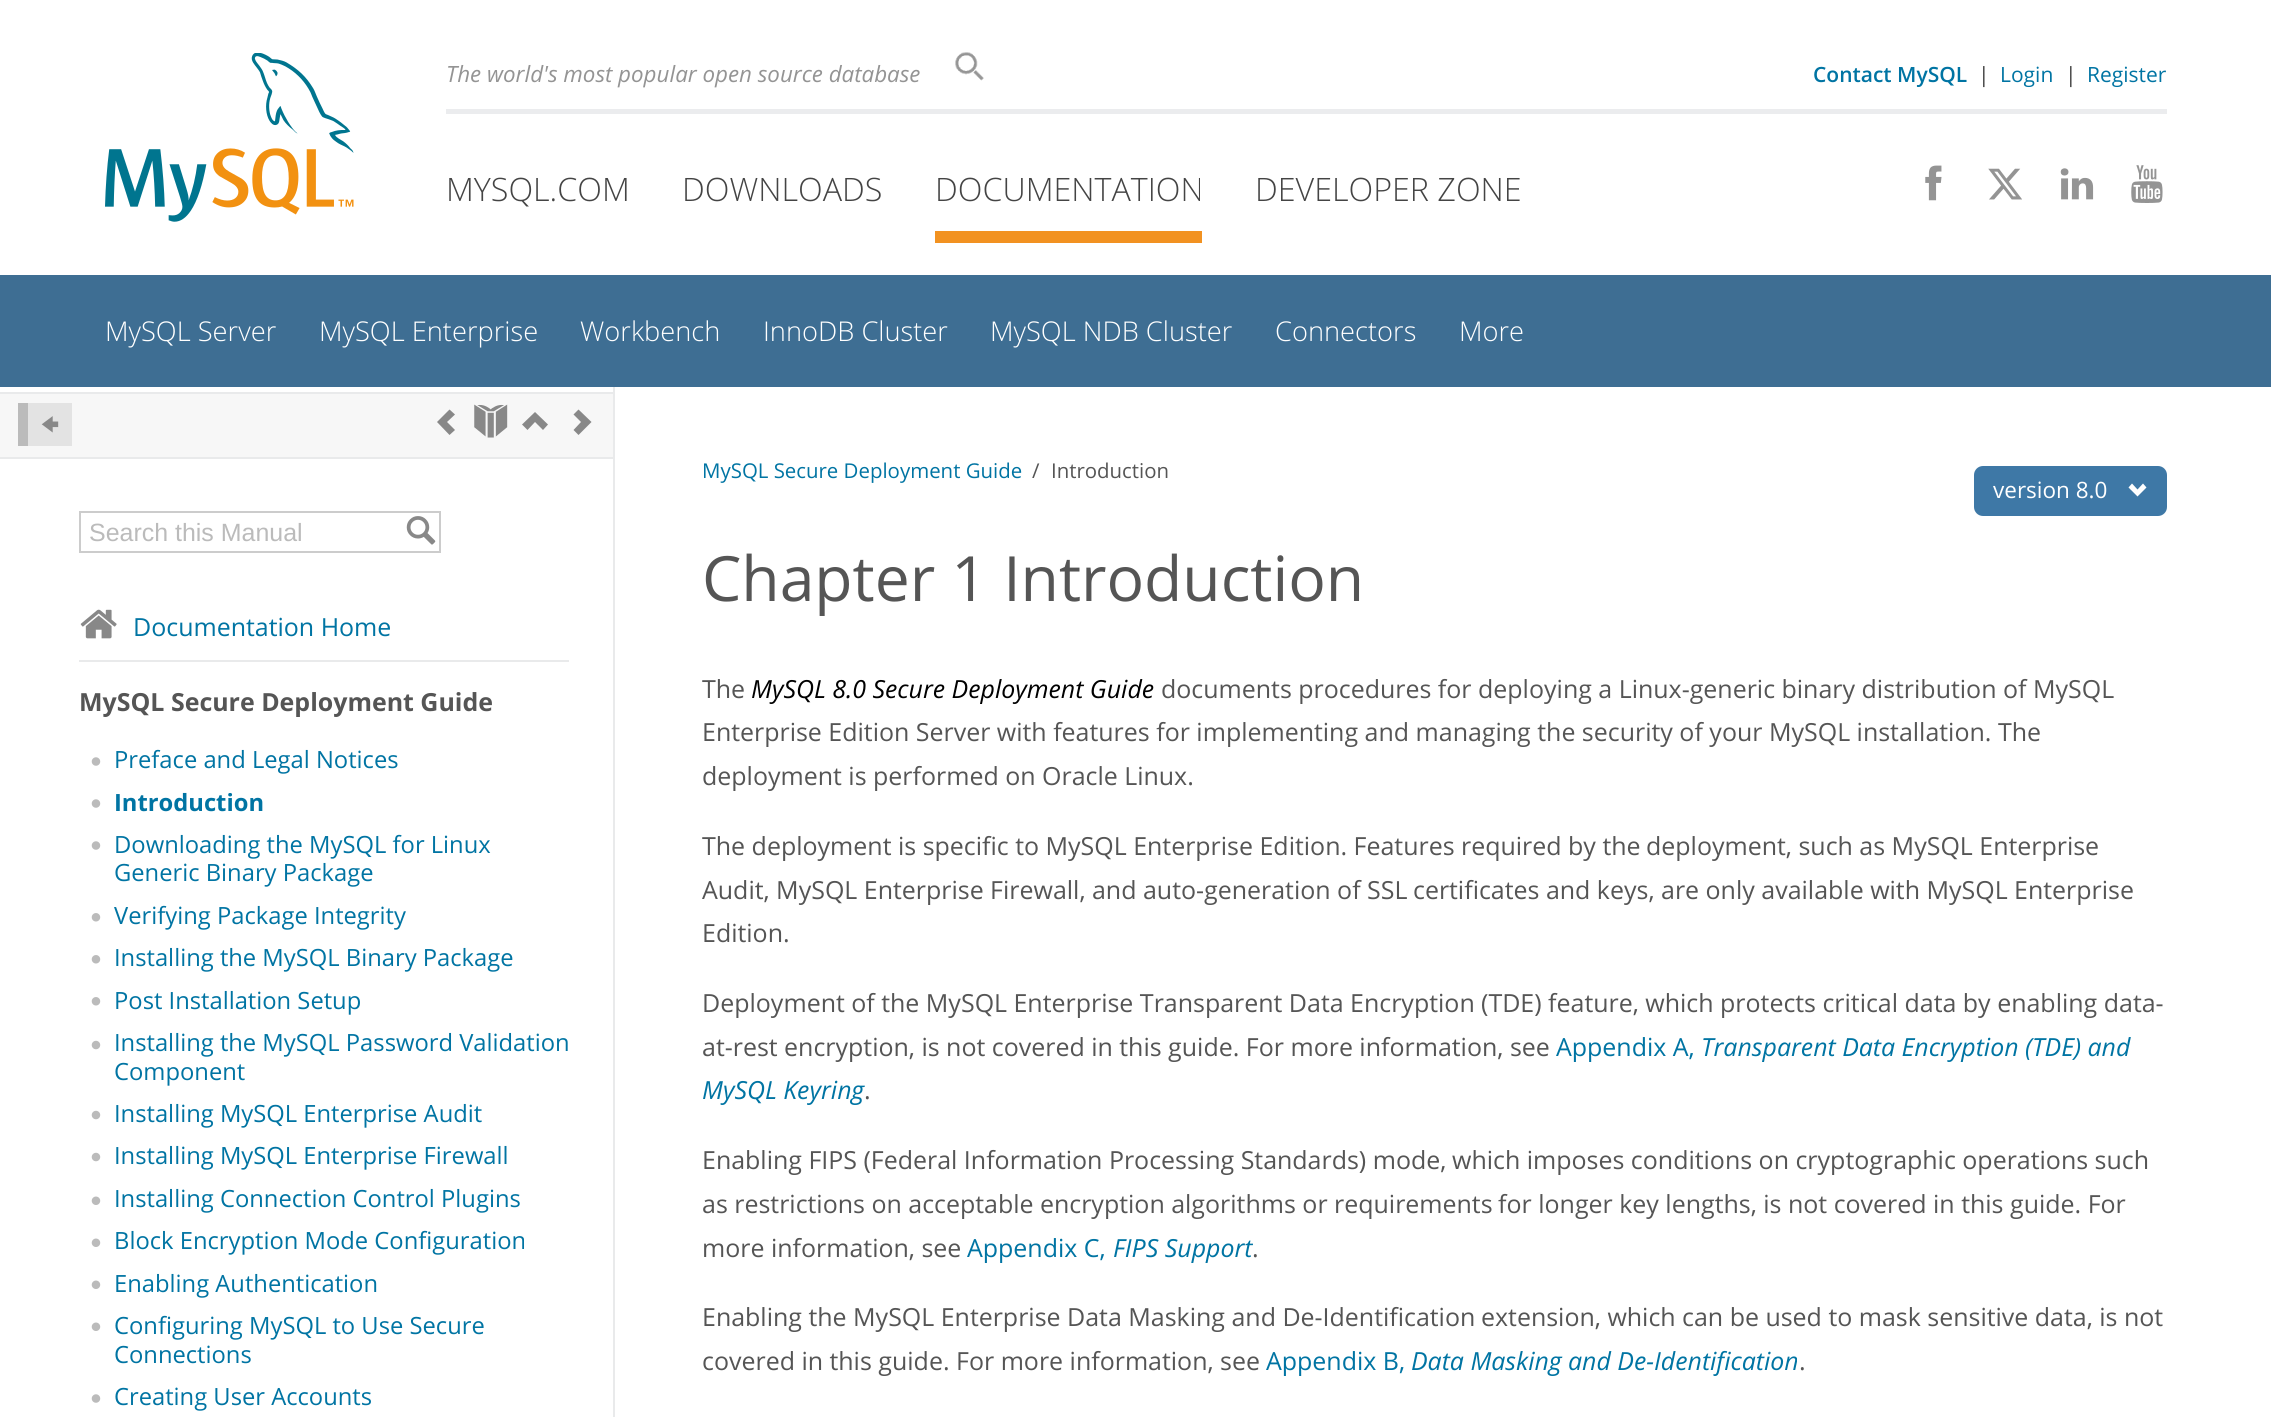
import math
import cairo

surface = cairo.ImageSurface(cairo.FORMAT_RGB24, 2271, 1417)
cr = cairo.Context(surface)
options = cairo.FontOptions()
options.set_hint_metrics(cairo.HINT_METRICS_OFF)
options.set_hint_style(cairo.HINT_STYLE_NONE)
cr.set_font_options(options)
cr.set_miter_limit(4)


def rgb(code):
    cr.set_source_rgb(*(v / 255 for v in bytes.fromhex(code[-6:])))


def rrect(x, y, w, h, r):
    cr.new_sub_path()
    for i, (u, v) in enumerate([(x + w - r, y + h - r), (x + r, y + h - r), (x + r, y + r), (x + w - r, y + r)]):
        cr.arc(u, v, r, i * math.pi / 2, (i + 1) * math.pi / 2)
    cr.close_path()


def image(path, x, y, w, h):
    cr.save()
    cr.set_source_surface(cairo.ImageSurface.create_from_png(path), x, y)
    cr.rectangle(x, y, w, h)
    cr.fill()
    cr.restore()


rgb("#ffffff")
cr.paint()
image("img/1.png", 105, 53, 249, 169)
rgb("#ebecee")
cr.rectangle(446, 109, 1721, 5)
cr.fill()
image("img/2.png", 955, 52, 29, 29)
rgb("#f29221")
cr.rectangle(935, 231, 267, 12)
cr.fill()
image("img/3.png", 1925, 165, 17, 36)
image("img/4.png", 1988, 168, 34, 32)
image("img/5.png", 2060, 168, 34, 32)
image("img/6.png", 2131, 165, 32, 38)
for x, y, w, h, color in [
    (0, 275, 2271, 112, "#3e6e93"),
    (613, 387, 2, 1030, "#e9eaeb"),
    (0, 394, 613, 63, "#f7f7f7"),
    (0, 392, 613, 2, "#e9eaeb"),
    (0, 457, 613, 2, "#e9eaeb"),
    (28, 403, 44, 43, "#e3e3e3"),
    (18, 403, 10, 43, "#bbbbbb"),
]:
    rgb(color)
    cr.rectangle(x, y, w, h)
    cr.fill()
image("img/7.png", 41, 416, 18, 17)
rgb("#888888")
cr.new_path()
cr.move_to(455, 414.5)
cr.line_to(449.5, 409.5)
cr.line_to(437, 422)
cr.line_to(449.5, 435)
cr.line_to(455, 430)
cr.line_to(447, 422)
cr.close_path()
cr.fill()
image("img/8.png", 474, 404, 34, 34)
cr.new_path()
cr.move_to(535, 412)
cr.line_to(522, 424.5)
cr.line_to(527.5, 430)
cr.line_to(535, 422)
cr.line_to(543, 430)
cr.line_to(548, 424.5)
cr.close_path()
cr.fill()
cr.new_path()
cr.move_to(578.5, 409.5)
cr.line_to(573.5, 414.5)
cr.line_to(581, 422)
cr.line_to(573.5, 430)
cr.line_to(578.5, 435)
cr.line_to(591.5, 422)
cr.close_path()
cr.fill()
cr.rectangle(80, 512, 360, 40)
rgb("#cccccc")
cr.stroke()
image("img/9.png", 406, 516, 30, 29)
image("img/10.png", 80, 609, 37, 30)
rgb("#e9eaeb")
cr.rectangle(79, 660, 490, 2)
cr.fill()
image("img/11.png", 91, 757, 10, 9)
image("img/11.png", 91, 799, 10, 9)
image("img/11.png", 91, 841, 10, 9)
image("img/12.png", 91, 913, 10, 9)
image("img/12.png", 91, 955, 10, 9)
image("img/12.png", 91, 997, 10, 9)
image("img/13.png", 91, 1040, 10, 10)
image("img/13.png", 91, 1110, 10, 10)
image("img/13.png", 91, 1152, 10, 10)
image("img/14.png", 91, 1196, 10, 9)
image("img/14.png", 91, 1238, 10, 9)
image("img/14.png", 91, 1280, 10, 9)
image("img/14.png", 91, 1322, 10, 9)
image("img/11.png", 91, 1394, 10, 9)
rgb("#3e78a6")
rrect(1974, 466, 193, 50, 9)
cr.fill()
rgb("#ffffff")
cr.new_path()
cr.move_to(2143, 483.5)
cr.line_to(2137.5, 489.5)
cr.line_to(2132, 483.5)
cr.line_to(2128.5, 487.5)
cr.line_to(2137.5, 496.5)
cr.line_to(2146.5, 487.5)
cr.close_path()
cr.fill()
cr.select_font_face("Open Sans", cairo.FONT_SLANT_ITALIC)
cr.set_font_size(22.4)
rgb("#949494")
cr.move_to(446, 82)
cr.show_text("The world's most popular open source database")
cr.select_font_face("Open Sans SemiBold")
cr.set_font_size(21)
rgb("#0074a3")
cr.move_to(1813, 82)
cr.show_text("Contact MySQL")
cr.select_font_face("Open Sans")
rgb("#444444")
cr.move_to(1978, 82)
cr.show_text("|")
rgb("#0074a3")
cr.move_to(2000, 82)
cr.show_text("Login")
rgb("#444444")
cr.move_to(2065, 82)
cr.show_text("|")
rgb("#0074a3")
cr.move_to(2087, 82)
cr.show_text("Register")
cr.select_font_face("Open Sans Light")
cr.set_font_size(32.25)
rgb("#444444")
for x, y, s in [
    (446, 201, "MYSQL.COM"),
    (682, 201, "DOWNLOADS"),
    (935, 201, "DOCUMENTATION"),
    (1255, 201, "DEVELOPER ZONE"),
]:
    cr.move_to(x, y)
    cr.show_text(s)
cr.set_font_size(27.25)
rgb("#ffffff")
for x, y, s in [
    (105, 341, "MySQL Server"),
    (319, 341, "MySQL Enterprise"),
    (580, 341, "Workbench"),
    (763, 341, "InnoDB Cluster"),
    (990, 341, "MySQL NDB Cluster"),
    (1275, 341, "Connectors"),
    (1459, 341, "More"),
]:
    cr.move_to(x, y)
    cr.show_text(s)
cr.select_font_face("Liberation Sans")
cr.set_font_size(24.95)
rgb("#bbbbbb")
cr.move_to(89, 541)
cr.show_text("Search this Manual")
cr.select_font_face("Open Sans")
rgb("#0074a3")
cr.move_to(133, 636)
cr.show_text("Documentation Home")
cr.select_font_face("Open Sans", cairo.FONT_SLANT_NORMAL, cairo.FONT_WEIGHT_BOLD)
rgb("#555555")
cr.move_to(79, 711)
cr.show_text("MySQL Secure Deployment Guide")
cr.select_font_face("Open Sans")
cr.set_font_size(23.75)
rgb("#0074a3")
cr.move_to(114, 768)
cr.show_text("Preface and Legal Notices")
cr.select_font_face("Open Sans", cairo.FONT_SLANT_NORMAL, cairo.FONT_WEIGHT_BOLD)
cr.move_to(114, 811)
cr.show_text("Introduction")
cr.select_font_face("Open Sans")
for x, y, s in [
    (114, 853, "Downloading the MySQL for Linux"),
    (114, 881, "Generic Binary Package"),
    (114, 924, "Verifying Package Integrity"),
    (114, 966, "Installing the MySQL Binary Package"),
    (114, 1009, "Post Installation Setup"),
    (114, 1051, "Installing the MySQL Password Validation"),
    (114, 1080, "Component"),
    (114, 1122, "Installing MySQL Enterprise Audit"),
    (114, 1164, "Installing MySQL Enterprise Firewall"),
    (114, 1207, "Installing Connection Control Plugins"),
    (114, 1249, "Block Encryption Mode Configuration"),
    (114, 1292, "Enabling Authentication"),
    (114, 1334, "Configuring MySQL to Use Secure"),
    (114, 1363, "Connections"),
    (114, 1405, "Creating User Accounts"),
]:
    cr.move_to(x, y)
    cr.show_text(s)
cr.set_font_size(20.4)
cr.move_to(702, 478)
cr.show_text("MySQL Secure Deployment Guide")
rgb("#555555")
cr.move_to(1032, 478)
cr.show_text("/")
cr.move_to(1051, 478)
cr.show_text("Introduction")
cr.set_font_size(22.5)
rgb("#ffffff")
cr.move_to(1993, 498)
cr.show_text("version 8.0")
cr.set_font_size(62.4)
rgb("#555555")
cr.move_to(702, 601)
cr.show_text("Chapter 1 Introduction")
cr.set_font_size(24.95)
cr.move_to(702, 698)
cr.show_text("The")
cr.select_font_face("Open Sans", cairo.FONT_SLANT_ITALIC)
rgb("#000000")
cr.move_to(751, 698)
cr.show_text("MySQL 8.0 Secure Deployment Guide")
cr.select_font_face("Open Sans")
rgb("#555555")
for x, y, s in [
    (1161, 698, "documents procedures for deploying a Linux-generic binary distribution of MySQL"),
    (702, 741, "Enterprise Edition Server with features for implementing and managing the security of your MySQL installation. The"),
    (702, 785, "deployment is performed on Oracle Linux."),
    (702, 855, "The deployment is specific to MySQL Enterprise Edition. Features required by the"),
    (1646, 855, "deployment, such as MySQL Enterprise"),
    (702, 899, "Audit, MySQL Enterprise Firewall, and auto-generation of SSL"),
    (1413, 899, "certificates and keys, are only available with MySQL Enterprise"),
    (702, 942, "Edition."),
    (702, 1012, "Deployment of the MySQL Enterprise Transparent Data Encryption"),
    (1481, 1012, "(TDE) feature, which protects critical data by enabling data-"),
    (702, 1056, "at-rest encryption, is not covered in this guide. For more information, see"),
]:
    cr.move_to(x, y)
    cr.show_text(s)
rgb("#0074a3")
cr.move_to(1556, 1056)
cr.show_text("Appendix A,")
cr.select_font_face("Open Sans", cairo.FONT_SLANT_ITALIC)
cr.move_to(1701, 1056)
cr.show_text("Transparent Data Encryption (TDE) and")
cr.move_to(702, 1099)
cr.show_text("MySQL Keyring")
cr.select_font_face("Open Sans")
rgb("#555555")
for x, y, s in [
    (864, 1099, "."),
    (702, 1169, "Enabling FIPS (Federal Information Processing Standards) mode,"),
    (1452, 1169, "which imposes conditions on cryptographic operations such"),
    (702, 1213, "as restrictions on acceptable encryption algorithms or requirements"),
    (1498, 1213, "for longer key lengths, is not covered in this guide. For"),
    (702, 1257, "more information, see"),
]:
    cr.move_to(x, y)
    cr.show_text(s)
rgb("#0074a3")
cr.move_to(967, 1257)
cr.show_text("Appendix C,")
cr.select_font_face("Open Sans", cairo.FONT_SLANT_ITALIC)
cr.move_to(1113, 1257)
cr.show_text("FIPS Support")
cr.select_font_face("Open Sans")
rgb("#555555")
for x, y, s in [
    (1252, 1257, "."),
    (702, 1326, "Enabling the MySQL Enterprise Data Masking and De-Identification"),
    (1481, 1326, "extension, which can be used to mask sensitive data, is not"),
    (702, 1370, "covered in this guide. For more information, see"),
]:
    cr.move_to(x, y)
    cr.show_text(s)
rgb("#0074a3")
cr.move_to(1266, 1370)
cr.show_text("Appendix B,")
cr.select_font_face("Open Sans", cairo.FONT_SLANT_ITALIC)
cr.move_to(1411, 1370)
cr.show_text("Data Masking and De-Identification")
cr.select_font_face("Open Sans")
rgb("#555555")
cr.move_to(1799, 1370)
cr.show_text(".")
surface.write_to_png("page.png")
